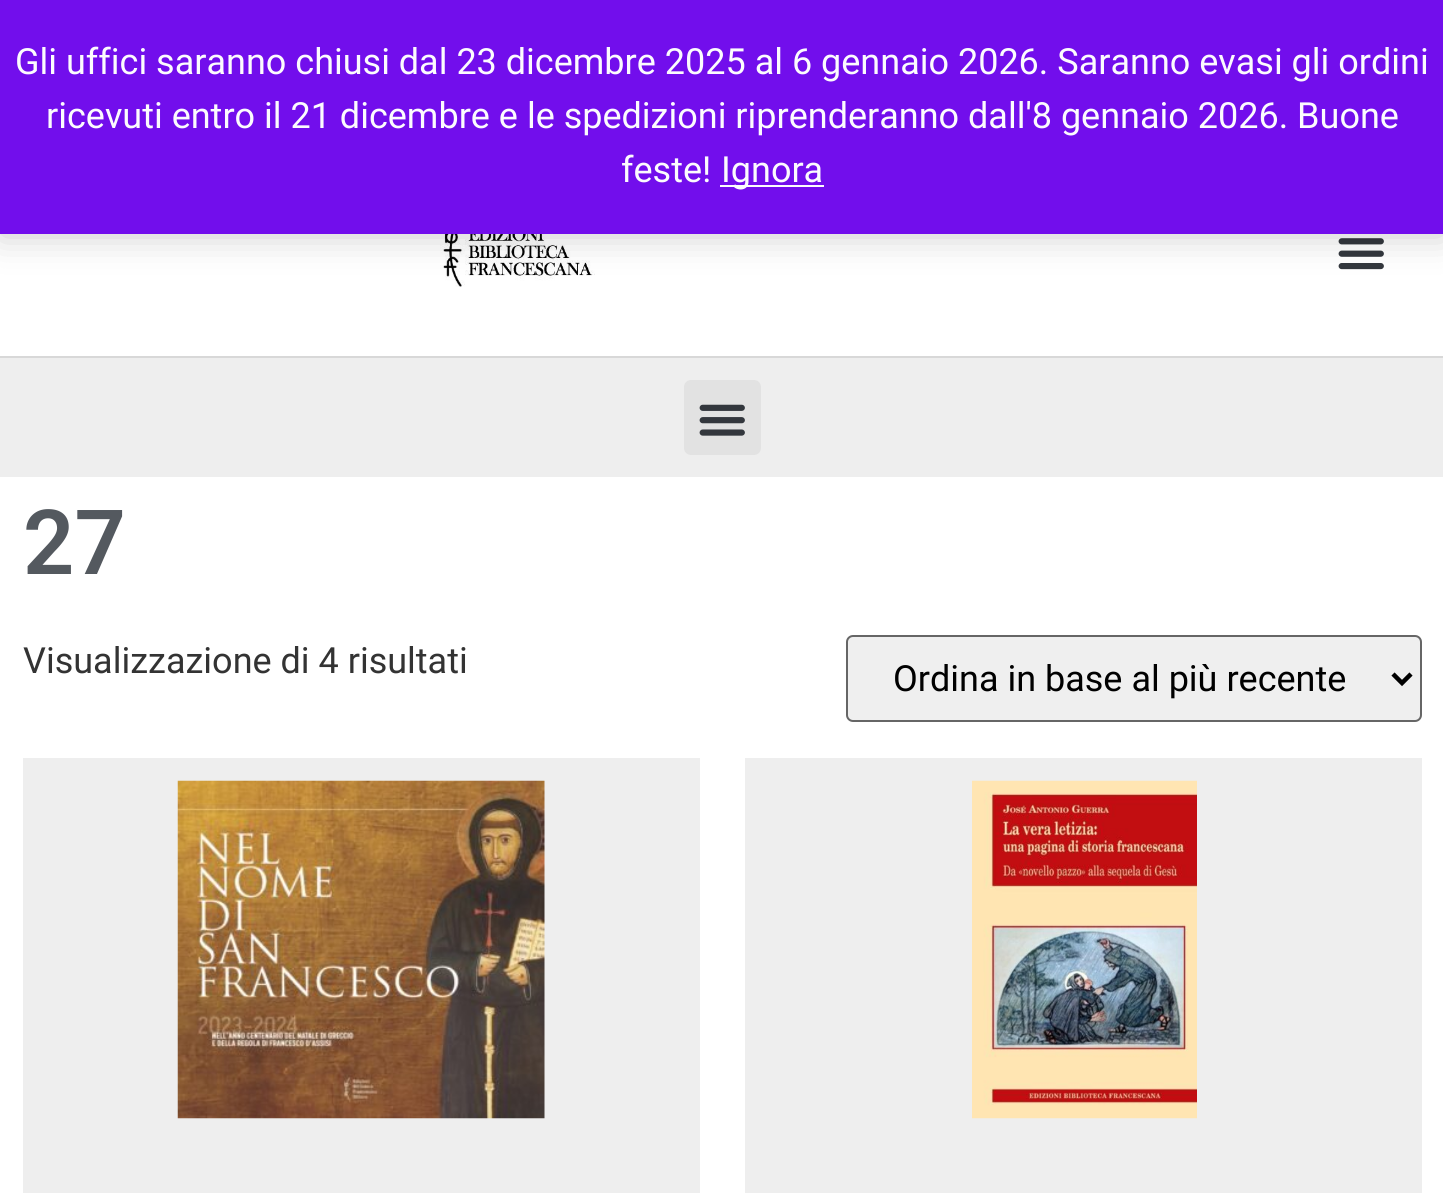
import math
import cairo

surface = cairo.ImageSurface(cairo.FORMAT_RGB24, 1443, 1193)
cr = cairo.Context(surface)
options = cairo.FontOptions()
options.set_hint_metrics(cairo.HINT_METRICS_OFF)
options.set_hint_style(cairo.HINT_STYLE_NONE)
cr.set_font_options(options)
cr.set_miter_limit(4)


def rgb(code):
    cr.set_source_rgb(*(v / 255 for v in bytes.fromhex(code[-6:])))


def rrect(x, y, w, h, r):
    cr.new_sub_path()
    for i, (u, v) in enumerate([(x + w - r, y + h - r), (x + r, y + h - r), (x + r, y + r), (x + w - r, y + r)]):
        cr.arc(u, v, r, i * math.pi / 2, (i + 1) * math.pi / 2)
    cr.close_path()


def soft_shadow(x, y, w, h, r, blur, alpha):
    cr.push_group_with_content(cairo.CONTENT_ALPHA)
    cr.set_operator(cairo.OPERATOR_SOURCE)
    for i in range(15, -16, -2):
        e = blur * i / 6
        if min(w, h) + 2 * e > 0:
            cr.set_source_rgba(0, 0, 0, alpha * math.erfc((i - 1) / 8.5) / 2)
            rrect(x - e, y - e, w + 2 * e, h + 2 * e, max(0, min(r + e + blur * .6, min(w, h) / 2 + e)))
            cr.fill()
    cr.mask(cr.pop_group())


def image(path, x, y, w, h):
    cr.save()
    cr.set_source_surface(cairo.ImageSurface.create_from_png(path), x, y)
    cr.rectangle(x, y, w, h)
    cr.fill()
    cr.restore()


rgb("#ffffff")
cr.paint()
image("img/1.png", 440, 234, 155, 53)
image("img/2.png", 1338, 238, 46, 32)
rgb("#000000")
soft_shadow(0, 2, 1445, 234, 0, 18, 0.2)
for x, y, w, h, color in [
    (0, 0, 1443, 234, "#720eec"),
    (720, 185, 104, 2, "#fcfbfe"),
    (0, 356, 1443, 2, "#d8d8d8"),
    (0, 358, 1443, 119, "#eeeeee"),
]:
    rgb(color)
    cr.rectangle(x, y, w, h)
    cr.fill()
rgb("#e2e2e2")
rrect(684, 380, 77, 75, 7)
cr.fill()
image("img/3.png", 699, 404, 46, 32)
rgb("#efefef")
rrect(847, 636, 574, 85, 6)
cr.fill_preserve()
rgb("#666666")
cr.stroke()
cr.new_path()
cr.move_to(1393, 674)
cr.line_to(1402, 683)
cr.line_to(1411, 674)
rgb("#000000")
cr.set_line_width(4.5)
cr.stroke()
rgb("#eeeeee")
cr.rectangle(23, 758, 677, 435)
cr.fill()
image("img/4.png", 177, 780, 368, 339)
cr.rectangle(745, 758, 677, 435)
cr.fill()
image("img/5.png", 972, 780, 225, 339)
cr.select_font_face("Roboto")
cr.set_font_size(36)
rgb("#fcfbfe")
for x, y, s in [
    (15, 74, "Gli uffici saranno chiusi dal 23 dicembre 2025 al 6 gennaio 2026. Saranno evasi gli ordini"),
    (46, 128, "ricevuti entro il 21 dicembre e le spedizioni riprenderanno dall'8 gennaio 2026. Buone"),
    (621, 182, "feste!"),
    (721, 182, "Ignora"),
]:
    cr.move_to(x, y)
    cr.show_text(s)
cr.select_font_face("Roboto SemiBold")
cr.set_font_size(90)
rgb("#54595f")
cr.move_to(23, 574)
cr.show_text("27")
cr.select_font_face("Roboto")
cr.set_font_size(36)
rgb("#333333")
cr.move_to(23, 673)
cr.show_text("Visualizzazione di 4 risultati")
rgb("#000000")
cr.move_to(893, 691)
cr.show_text("Ordina in base al più recente")
surface.write_to_png("page.png")
